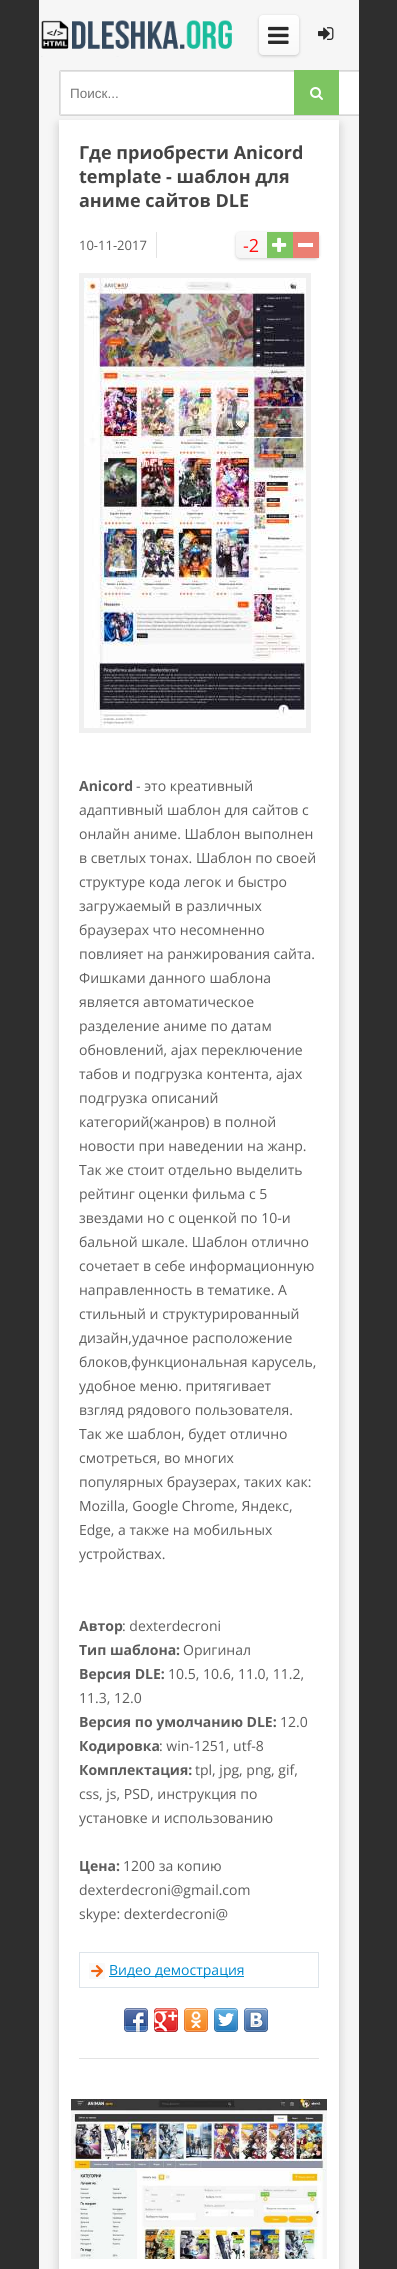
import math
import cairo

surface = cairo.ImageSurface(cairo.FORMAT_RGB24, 397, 2269)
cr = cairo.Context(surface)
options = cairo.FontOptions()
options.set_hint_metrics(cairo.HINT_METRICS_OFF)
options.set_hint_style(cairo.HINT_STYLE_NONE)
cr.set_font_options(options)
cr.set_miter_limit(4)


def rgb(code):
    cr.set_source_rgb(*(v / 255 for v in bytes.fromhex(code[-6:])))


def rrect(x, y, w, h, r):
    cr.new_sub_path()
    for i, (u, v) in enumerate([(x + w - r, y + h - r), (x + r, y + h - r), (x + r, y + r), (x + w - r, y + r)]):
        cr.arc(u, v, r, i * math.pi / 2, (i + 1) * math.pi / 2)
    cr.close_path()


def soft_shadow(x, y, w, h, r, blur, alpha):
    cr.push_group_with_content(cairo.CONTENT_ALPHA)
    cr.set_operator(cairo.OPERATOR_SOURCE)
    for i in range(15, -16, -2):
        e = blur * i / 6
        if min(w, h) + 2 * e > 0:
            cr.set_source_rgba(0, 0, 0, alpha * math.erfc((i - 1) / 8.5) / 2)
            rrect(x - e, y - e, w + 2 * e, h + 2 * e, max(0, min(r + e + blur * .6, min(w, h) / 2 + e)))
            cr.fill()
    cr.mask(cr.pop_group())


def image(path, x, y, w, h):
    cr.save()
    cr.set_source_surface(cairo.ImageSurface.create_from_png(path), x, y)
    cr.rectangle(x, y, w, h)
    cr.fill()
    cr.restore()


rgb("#2e2e2e")
cr.paint()
rgb("#f6f6f6")
cr.rectangle(39, 0, 320, 2269)
cr.fill()
image("img/1.png", 41, 20, 191, 37)
image("img/2.png", 318, 27, 16, 13)
rgb("#000000")
soft_shadow(259, 16, 40, 40, 4, 1.5, 0.2)
gradient = cairo.LinearGradient(279, 15, 279, 55)
gradient.add_color_stop_rgba(0, 1, 1, 1, 1)
gradient.add_color_stop_rgba(1, 0.973, 0.973, 0.973, 1)
cr.set_source(gradient)
rrect(259, 15, 40, 40, 4)
cr.fill()
image("img/3.png", 268, 26, 21, 18)
rgb("#ffffff")
cr.new_path()
cr.move_to(61, 70)
cr.line_to(359, 70)
cr.line_to(359, 116)
cr.line_to(61, 116)
cr.curve_to(60, 116, 59, 115, 59, 114)
cr.line_to(59, 72)
cr.curve_to(59, 71, 60, 70, 61, 70)
cr.close_path()
cr.fill()
cr.save()
cr.rectangle(39, 0, 320, 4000)
cr.clip()
rrect(60.5, 71.5, 299, 43, 0.5)
rgb("#e3e3e3")
cr.set_line_width(1)
cr.stroke()
rrect(59.5, 70.5, 301, 45, 1.5)
rgb("#d7d7d7")
cr.stroke()
cr.restore()
rgb("#7dc561")
cr.rectangle(294, 70, 45, 45)
cr.fill()
image("img/4.png", 310, 87, 13, 13)
rgb("#000000")
soft_shadow(59, 125, 280, 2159, 0, 5, 0.2)
for x, y, w, h, color in [
    (59, 120, 280, 2149, "#ffffff"),
    (79, 2058, 240, 1, "#e3e3e3"),
    (156, 232, 1, 26, "#e3e3e3"),
]:
    rgb(color)
    cr.rectangle(x, y, w, h)
    cr.fill()
rgb("#000000")
soft_shadow(236, 233, 83, 26, 4, 1.5, 0.2)
gradient = cairo.LinearGradient(278, 232, 278, 258)
gradient.add_color_stop_rgba(0, 0.976, 0.976, 0.976, 1)
gradient.add_color_stop_rgba(1, 0.961, 0.961, 0.961, 1)
cr.set_source(gradient)
rrect(236, 232, 83, 26, 4)
cr.fill()
rgb("#7dc561")
cr.rectangle(267, 232, 26, 26)
cr.fill()
image("img/5.png", 272, 237, 15, 15)
rgb("#eb7f73")
cr.rectangle(293, 232, 26, 26)
cr.fill()
rgb("#ffffff")
cr.rectangle(298, 243, 15, 4)
cr.fill()
cr.rectangle(81.5, 275.5, 227, 455)
rgb("#f0f0f0")
cr.set_line_width(5)
cr.stroke()
image("img/6.png", 84, 278, 222, 450)
cr.rectangle(79.5, 1952.5, 239, 35)
rgb("#dde4ea")
cr.set_line_width(1)
cr.stroke()
image("img/7.png", 89, 1963, 16, 16)
rgb("#008ace")
cr.rectangle(109, 1976, 135, 1)
cr.fill()
image("img/8.png", 124, 2008, 24, 24)
image("img/9.png", 154, 2008, 24, 24)
image("img/10.png", 184, 2008, 24, 24)
image("img/11.png", 214, 2008, 24, 24)
image("img/12.png", 244, 2008, 24, 24)
image("img/13.png", 71, 2099, 256, 160)
cr.select_font_face("Liberation Sans")
cr.set_font_size(13.5)
rgb("#757575")
cr.move_to(70, 98)
cr.show_text("Поиск...")
cr.select_font_face("Open Sans", cairo.FONT_SLANT_NORMAL, cairo.FONT_WEIGHT_BOLD)
cr.set_font_size(18)
rgb("#444444")
for x, y, s in [
    (79, 159, "Где приобрести Anicord"),
    (79, 183, "template - шаблон для"),
    (79, 207, "аниме сайтов DLE"),
]:
    cr.move_to(x, y)
    cr.show_text(s)
cr.select_font_face("Open Sans")
cr.set_font_size(13)
rgb("#5c5c5c")
cr.move_to(79, 250)
cr.show_text("10-11-2017")
cr.set_font_size(18)
rgb("#ff0e0e")
cr.move_to(243, 252)
cr.show_text("-2")
cr.select_font_face("Open Sans", cairo.FONT_SLANT_NORMAL, cairo.FONT_WEIGHT_BOLD)
cr.set_font_size(14)
rgb("#5c5c5c")
cr.move_to(79, 791)
cr.show_text("Anicord")
cr.select_font_face("Open Sans")
for x, y, s in [
    (136, 791, "- это креативный"),
    (79, 815, "адаптивный шаблон для сайтов с"),
    (79, 839, "онлайн аниме. Шаблон выполнен"),
    (79, 863, "в светлых тонах. Шаблон по своей"),
    (79, 887, "структуре кода легок и быстро"),
    (79, 911, "загружаемый в различных"),
    (79, 935, "браузерах что несомненно"),
    (79, 959, "повлияет на ранжирования сайта."),
    (79, 983, "Фишками данного шаблона"),
    (79, 1007, "является автоматическое"),
    (79, 1031, "разделение аниме по датам"),
    (79, 1055, "обновлений, ajax переключение"),
    (79, 1079, "табов и подгрузка контента, ajax"),
    (79, 1103, "подгрузка описаний"),
    (79, 1127, "категорий(жанров) в полной"),
    (79, 1151, "новости при наведении на жанр."),
    (79, 1175, "Так же стоит отдельно выделить"),
    (79, 1199, "рейтинг оценки фильма с 5"),
    (79, 1223, "звездами но с оценкой по 10-и"),
    (79, 1247, "бальной шкале. Шаблон отлично"),
    (79, 1271, "сочетает в себе информационную"),
    (79, 1295, "направленность в тематике. А"),
    (79, 1319, "стильный и структурированный"),
    (79, 1343, "дизайн,удачное расположение"),
    (79, 1367, "блоков,функциональная карусель,"),
    (79, 1391, "удобное меню. притягивает"),
    (79, 1415, "взгляд рядового пользователя."),
    (79, 1439, "Так же шаблон, будет отлично"),
    (79, 1463, "смотреться, во многих"),
    (79, 1487, "популярных браузерах, таких как:"),
    (79, 1511, "Mozilla, Google Chrome, Яндекс,"),
    (79, 1535, "Edge, а также на мобильных"),
    (79, 1559, "устройствах."),
]:
    cr.move_to(x, y)
    cr.show_text(s)
cr.select_font_face("Open Sans", cairo.FONT_SLANT_NORMAL, cairo.FONT_WEIGHT_BOLD)
cr.move_to(79, 1631)
cr.show_text("Автор")
cr.select_font_face("Open Sans")
cr.move_to(122, 1631)
cr.show_text(": dexterdecroni")
cr.select_font_face("Open Sans", cairo.FONT_SLANT_NORMAL, cairo.FONT_WEIGHT_BOLD)
cr.move_to(79, 1655)
cr.show_text("Тип шаблона:")
cr.select_font_face("Open Sans")
cr.move_to(183, 1655)
cr.show_text("Оригинал")
cr.select_font_face("Open Sans", cairo.FONT_SLANT_NORMAL, cairo.FONT_WEIGHT_BOLD)
cr.move_to(79, 1679)
cr.show_text("Версия DLE:")
cr.select_font_face("Open Sans")
cr.move_to(168, 1679)
cr.show_text("10.5, 10.6, 11.0, 11.2,")
cr.move_to(79, 1703)
cr.show_text("11.3, 12.0")
cr.select_font_face("Open Sans", cairo.FONT_SLANT_NORMAL, cairo.FONT_WEIGHT_BOLD)
cr.move_to(79, 1727)
cr.show_text("Версия по умолчанию DLE:")
cr.select_font_face("Open Sans")
cr.move_to(280, 1727)
cr.show_text("12.0")
cr.select_font_face("Open Sans", cairo.FONT_SLANT_NORMAL, cairo.FONT_WEIGHT_BOLD)
cr.move_to(79, 1751)
cr.show_text("Кодировка")
cr.select_font_face("Open Sans")
cr.move_to(159, 1751)
cr.show_text(": win-1251, utf-8")
cr.select_font_face("Open Sans", cairo.FONT_SLANT_NORMAL, cairo.FONT_WEIGHT_BOLD)
cr.move_to(79, 1775)
cr.show_text("Комплектация:")
cr.select_font_face("Open Sans")
for x, y, s in [
    (195, 1775, "tpl, jpg, png, gif,"),
    (79, 1799, "css, js, PSD, инструкция по"),
    (79, 1823, "установке и использованию"),
]:
    cr.move_to(x, y)
    cr.show_text(s)
cr.select_font_face("Open Sans", cairo.FONT_SLANT_NORMAL, cairo.FONT_WEIGHT_BOLD)
cr.move_to(79, 1871)
cr.show_text("Цена:")
cr.select_font_face("Open Sans")
for x, y, s in [
    (123, 1871, "1200 за копию"),
    (79, 1895, "dexterdecroni@gmail.com"),
    (79, 1919, "skype: dexterdecroni@"),
]:
    cr.move_to(x, y)
    cr.show_text(s)
rgb("#008ace")
cr.move_to(109, 1975)
cr.show_text("Видео демострация")
surface.write_to_png("page.png")
